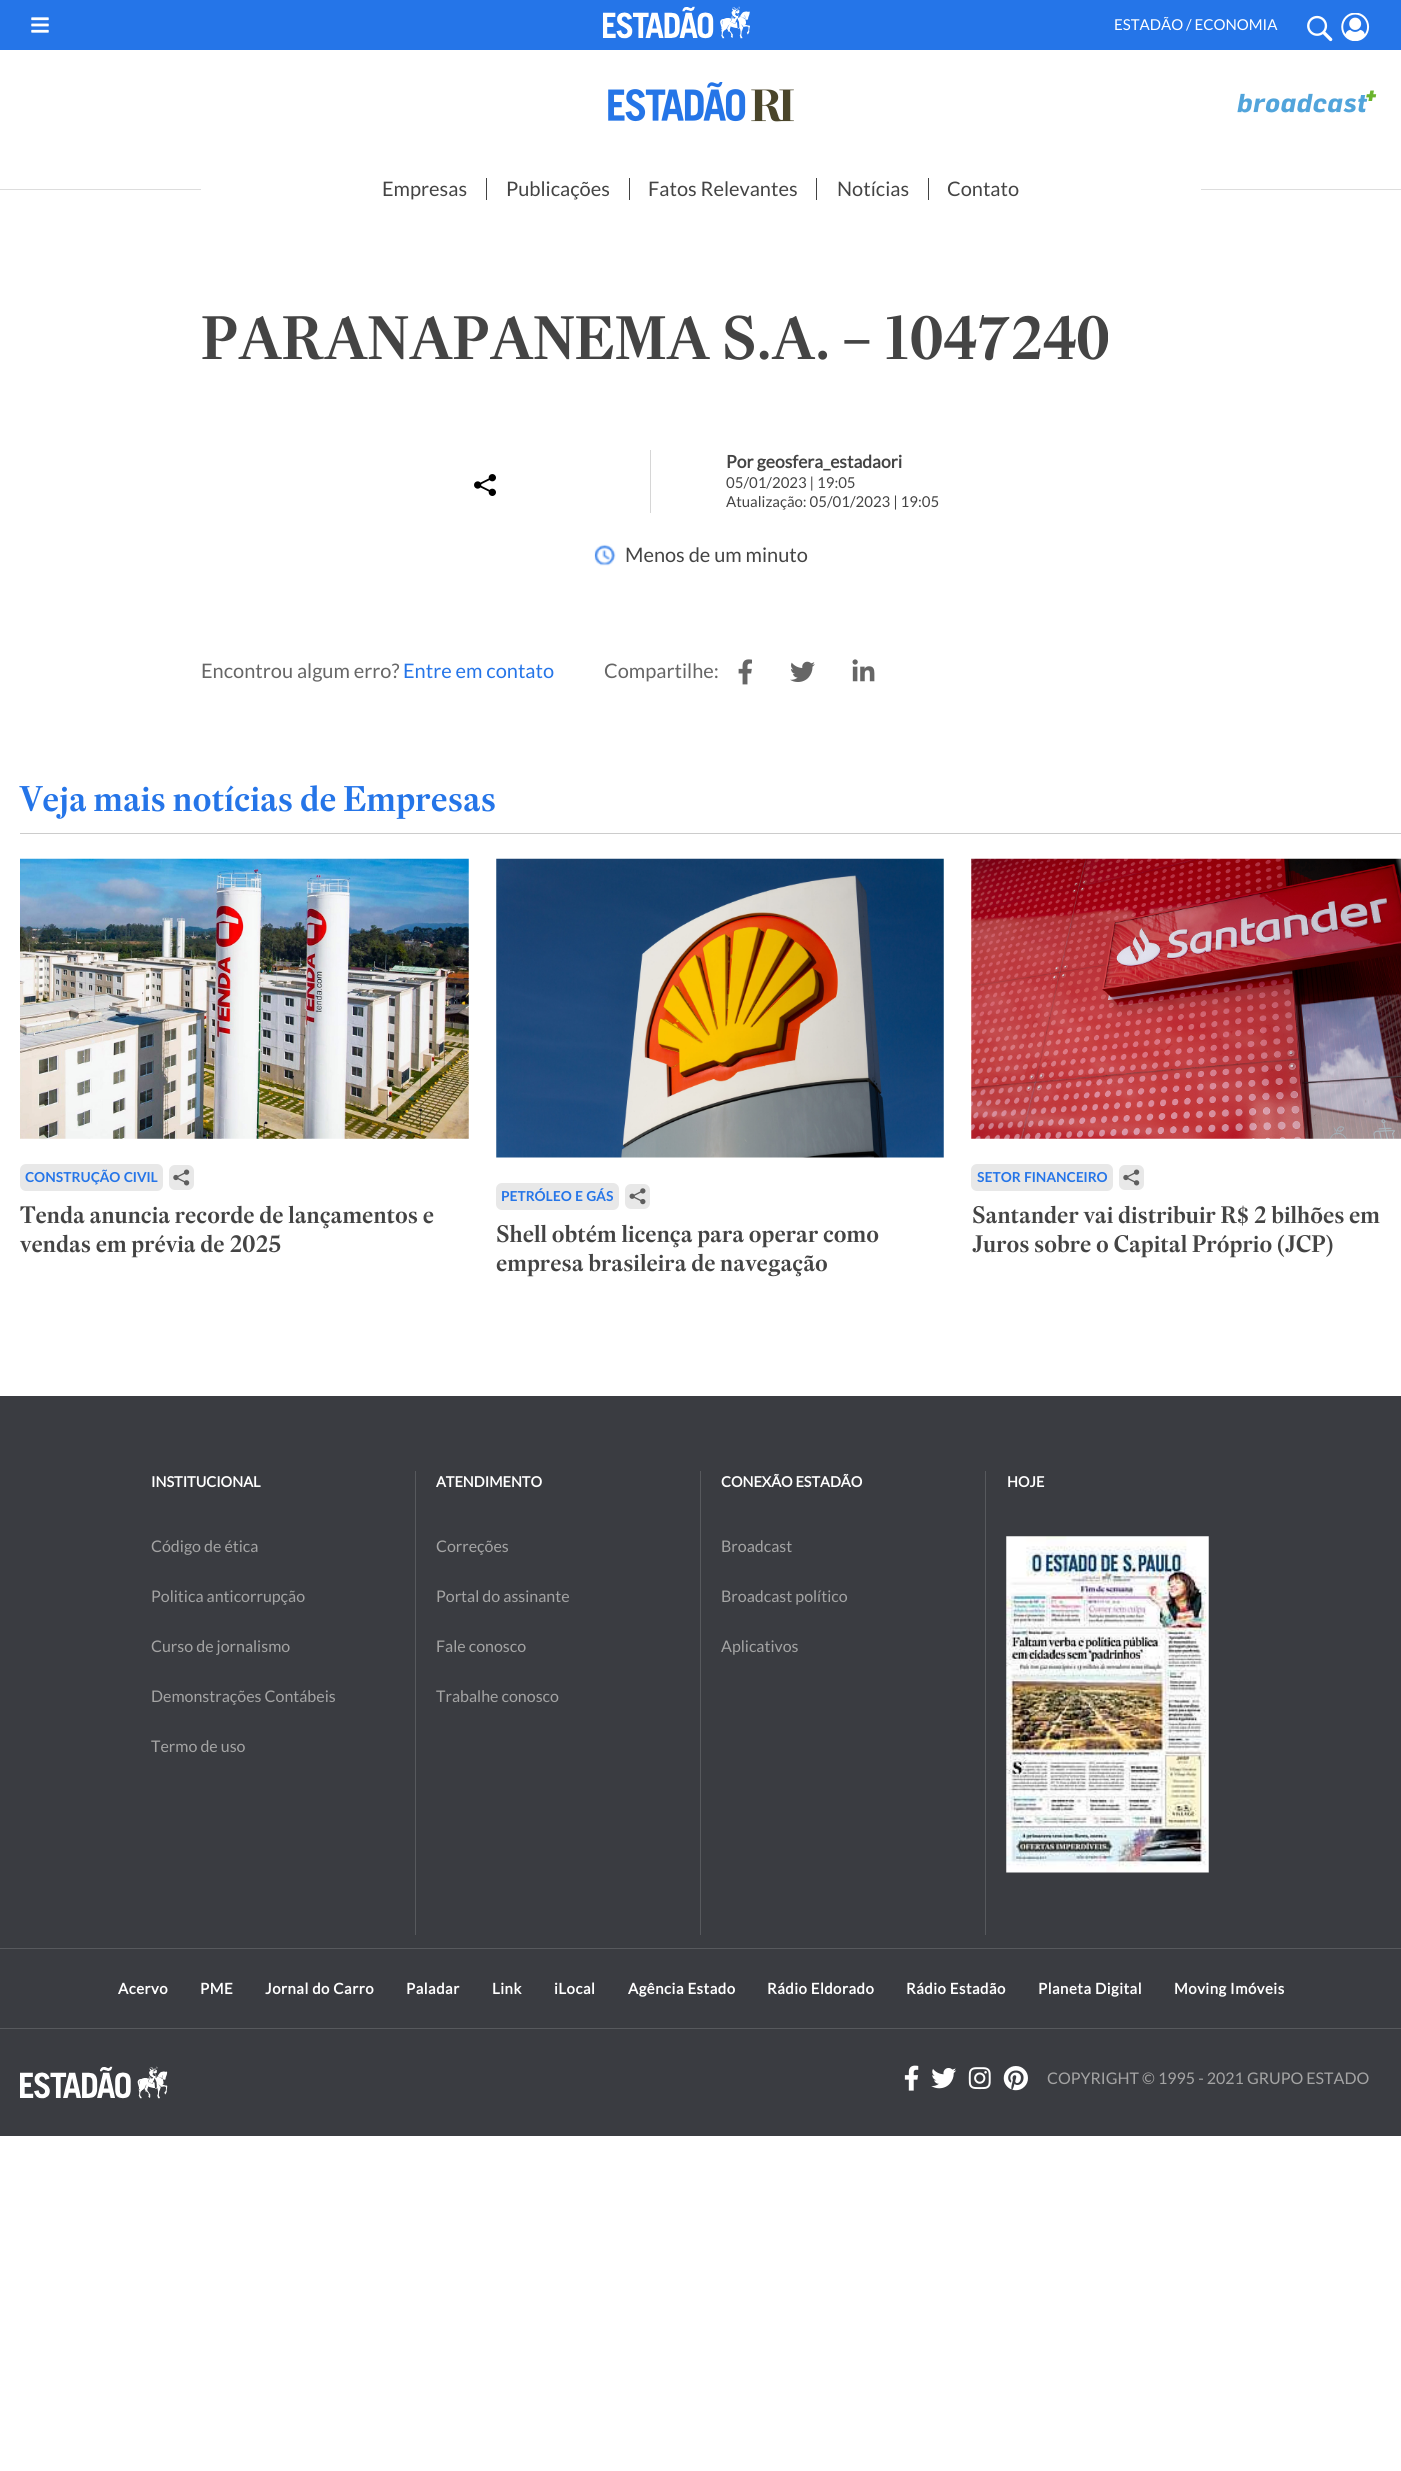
import math
import cairo

surface = cairo.ImageSurface(cairo.FORMAT_RGB24, 1401, 2471)
cr = cairo.Context(surface)
options = cairo.FontOptions()
options.set_hint_metrics(cairo.HINT_METRICS_OFF)
options.set_hint_style(cairo.HINT_STYLE_NONE)
cr.set_font_options(options)
cr.set_miter_limit(4)


def rgb(code):
    cr.set_source_rgb(*(v / 255 for v in bytes.fromhex(code[-6:])))


def tracked(x, y, s, letter, word):
    cr.move_to(x, y)
    for ch in s:
        cr.show_text(ch)
        cr.rel_move_to(letter + word * (ch == ' '), 0)


def rrect(x, y, w, h, r):
    cr.new_sub_path()
    for i, (u, v) in enumerate([(x + w - r, y + h - r), (x + r, y + h - r), (x + r, y + r), (x + w - r, y + r)]):
        cr.arc(u, v, r, i * math.pi / 2, (i + 1) * math.pi / 2)
    cr.close_path()


def image(path, x, y, w, h):
    cr.save()
    cr.set_source_surface(cairo.ImageSurface.create_from_png(path), x, y)
    cr.rectangle(x, y, w, h)
    cr.fill()
    cr.restore()


rgb("#ffffff")
cr.paint()
rgb("#2575e8")
cr.rectangle(0, 0, 1401, 50)
cr.fill()
image("img/1.png", 31, 17, 18, 16)
image("img/2.png", 603, 6, 147, 33)
image("img/3.png", 1307, 15, 26, 27)
image("img/4.png", 1341, 13, 29, 28)
image("img/5.png", 608, 82, 186, 40)
image("img/6.png", 1237, 90, 140, 23)
for x, y, w, h, color in [
    (0, 189, 1401, 1, "#dddddd"),
    (201, 189, 1000, 1, "#ffffff"),
    (486, 178, 1, 22, "#424242"),
    (629, 178, 1, 22, "#424242"),
    (816, 178, 1, 22, "#424242"),
    (928, 178, 1, 22, "#424242"),
]:
    rgb(color)
    cr.rectangle(x, y, w, h)
    cr.fill()
image("img/7.png", 474, 474, 22, 22)
rgb("#d6d6d6")
cr.rectangle(650, 450, 1, 63)
cr.fill()
image("img/8.png", 594, 544, 22, 22)
image("img/9.png", 738, 659, 14, 26)
image("img/10.png", 790, 661, 25, 21)
image("img/11.png", 852, 659, 23, 23)
rgb("#cccccc")
cr.rectangle(20, 833, 1381, 1)
cr.fill()
image("img/12.png", 20, 858, 449, 281)
rgb("#e8e8e8")
rrect(20, 1164, 143, 27, 6)
cr.fill()
rrect(169, 1165, 25, 25, 6)
cr.fill()
image("img/13.png", 173, 1169, 17, 17)
image("img/14.png", 496, 858, 448, 300)
rrect(496, 1183, 123, 27, 6)
cr.fill()
rrect(625, 1184, 25, 25, 6)
cr.fill()
image("img/15.png", 629, 1188, 17, 17)
image("img/16.png", 971, 858, 430, 281)
rrect(971, 1164, 142, 27, 6)
cr.fill()
rrect(1119, 1165, 25, 25, 6)
cr.fill()
image("img/13.png", 1123, 1169, 17, 17)
for x, y, w, h, color in [
    (0, 1396, 1401, 740, "#3a3c41"),
    (415, 1471, 1, 464, "#57595d"),
    (700, 1471, 1, 464, "#57595d"),
    (985, 1471, 1, 464, "#57595d"),
]:
    rgb(color)
    cr.rectangle(x, y, w, h)
    cr.fill()
image("img/17.png", 1006, 1536, 203, 337)
cr.rectangle(0, 1948, 1401, 1)
cr.fill()
cr.rectangle(0, 2028, 1401, 1)
cr.fill()
image("img/18.png", 20, 2066, 148, 33)
image("img/19.png", 904, 2065, 15, 26)
image("img/20.png", 931, 2068, 26, 21)
image("img/21.png", 968, 2067, 23, 23)
image("img/22.png", 1003, 2066, 25, 25)
cr.select_font_face("Lato")
cr.set_font_size(15)
rgb("#ffffff")
cr.move_to(1114, 30)
cr.show_text("ESTADÃO / ECONOMIA")
cr.set_font_size(20)
rgb("#444444")
for x, y, s in [
    (382, 196, "Empresas"),
    (506, 196, "Publicações"),
    (648, 196, "Fatos Relevantes"),
    (837, 196, "Notícias"),
    (947, 196, "Contato"),
]:
    cr.move_to(x, y)
    cr.show_text(s)
cr.select_font_face("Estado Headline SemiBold")
cr.set_font_size(60)
cr.move_to(201, 359)
cr.show_text("PARANAPANEMA S.A. – 1047240")
cr.select_font_face("Lato", cairo.FONT_SLANT_NORMAL, cairo.FONT_WEIGHT_BOLD)
cr.set_font_size(17.5)
cr.move_to(726, 468)
cr.show_text("Por geosfera_estadaori")
cr.select_font_face("Lato")
cr.set_font_size(15)
cr.move_to(726, 488)
cr.show_text("05/01/2023 | 19:05")
cr.move_to(726, 507)
cr.show_text("Atualização: 05/01/2023 | 19:05")
cr.set_font_size(20)
cr.move_to(625, 562)
cr.show_text("Menos de um minuto")
rgb("#666666")
cr.move_to(201, 678)
cr.show_text("Encontrou algum erro?")
rgb("#2575e8")
cr.move_to(403, 678)
cr.show_text("Entre em contato")
rgb("#666666")
cr.move_to(604, 678)
cr.show_text("Compartilhe:")
cr.select_font_face("Estado Headline SemiBold")
cr.set_font_size(35)
rgb("#2575e8")
cr.move_to(20, 811)
cr.show_text("Veja mais notícias de Empresas")
cr.select_font_face("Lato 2", cairo.FONT_SLANT_NORMAL, cairo.FONT_WEIGHT_BOLD)
cr.set_font_size(13.75)
cr.move_to(25, 1182)
cr.show_text("CONSTRUÇÃO CIVIL")
cr.select_font_face("Estado Headline SemiBold")
cr.set_font_size(23.4)
rgb("#444444")
cr.move_to(20, 1223)
cr.show_text("Tenda anuncia recorde de lançamentos e")
cr.move_to(20, 1252)
cr.show_text("vendas em prévia de 2025")
cr.select_font_face("Lato 2", cairo.FONT_SLANT_NORMAL, cairo.FONT_WEIGHT_BOLD)
cr.set_font_size(13.75)
rgb("#2575e8")
cr.move_to(501, 1201)
cr.show_text("PETRÓLEO E GÁS")
cr.select_font_face("Estado Headline SemiBold")
cr.set_font_size(23.4)
rgb("#444444")
cr.move_to(496, 1242)
cr.show_text("Shell obtém licença para operar como")
cr.move_to(496, 1271)
cr.show_text("empresa brasileira de navegação")
cr.select_font_face("Lato 2", cairo.FONT_SLANT_NORMAL, cairo.FONT_WEIGHT_BOLD)
cr.set_font_size(13.75)
rgb("#2575e8")
cr.move_to(977, 1182)
cr.show_text("SETOR FINANCEIRO")
cr.select_font_face("Estado Headline SemiBold")
cr.set_font_size(23.4)
rgb("#444444")
cr.move_to(972, 1223)
cr.show_text("Santander vai distribuir R$ 2 bilhões em")
cr.move_to(972, 1252)
cr.show_text("Juros sobre o Capital Próprio (JCP)")
cr.select_font_face("Lato", cairo.FONT_SLANT_NORMAL, cairo.FONT_WEIGHT_BOLD)
cr.set_font_size(14.5)
rgb("#ffffff")
cr.move_to(151, 1487)
cr.show_text("INSTITUCIONAL")
cr.select_font_face("Lato")
cr.set_font_size(16)
rgb("#a4a4a4")
for x, y, s in [
    (151, 1552, "Código de ética"),
    (151, 1602, "Politica anticorrupção"),
    (151, 1652, "Curso de jornalismo"),
    (151, 1702, "Demonstrações Contábeis"),
    (151, 1752, "Termo de uso"),
]:
    cr.move_to(x, y)
    cr.show_text(s)
cr.select_font_face("Lato", cairo.FONT_SLANT_NORMAL, cairo.FONT_WEIGHT_BOLD)
cr.set_font_size(14.5)
rgb("#ffffff")
cr.move_to(436, 1487)
cr.show_text("ATENDIMENTO")
cr.select_font_face("Lato")
cr.set_font_size(16)
rgb("#a4a4a4")
for x, y, s in [
    (436, 1552, "Correções"),
    (436, 1602, "Portal do assinante"),
    (436, 1652, "Fale conosco"),
    (436, 1702, "Trabalhe conosco"),
]:
    cr.move_to(x, y)
    cr.show_text(s)
cr.select_font_face("Lato", cairo.FONT_SLANT_NORMAL, cairo.FONT_WEIGHT_BOLD)
cr.set_font_size(14.5)
rgb("#ffffff")
cr.move_to(721, 1487)
cr.show_text("CONEXÃO ESTADÃO")
cr.select_font_face("Lato")
cr.set_font_size(16)
rgb("#a4a4a4")
for x, y, s in [
    (721, 1552, "Broadcast"),
    (721, 1602, "Broadcast político"),
    (721, 1652, "Aplicativos"),
]:
    cr.move_to(x, y)
    cr.show_text(s)
cr.select_font_face("Lato", cairo.FONT_SLANT_NORMAL, cairo.FONT_WEIGHT_BOLD)
cr.set_font_size(14.5)
rgb("#ffffff")
cr.move_to(1007, 1487)
cr.show_text("HOJE")
cr.set_font_size(15)
for x, y, s in [
    (118, 1994, "Acervo"),
    (200, 1994, "PME"),
    (265, 1994, "Jornal do Carro"),
    (406, 1994, "Paladar"),
    (492, 1994, "Link"),
    (554, 1994, "iLocal"),
    (628, 1994, "Agência Estado"),
    (767, 1994, "Rádio Eldorado"),
    (906, 1994, "Rádio Estadão"),
    (1038, 1994, "Planeta Digital"),
    (1174, 1994, "Moving Imóveis"),
]:
    tracked(x, y, s, 0.5, 0)
cr.select_font_face("Lato")
cr.set_font_size(16)
rgb("#a4a4a4")
cr.move_to(1047, 2084)
cr.show_text("COPYRIGHT © 1995 - 2021 GRUPO ESTADO")
surface.write_to_png("page.png")
